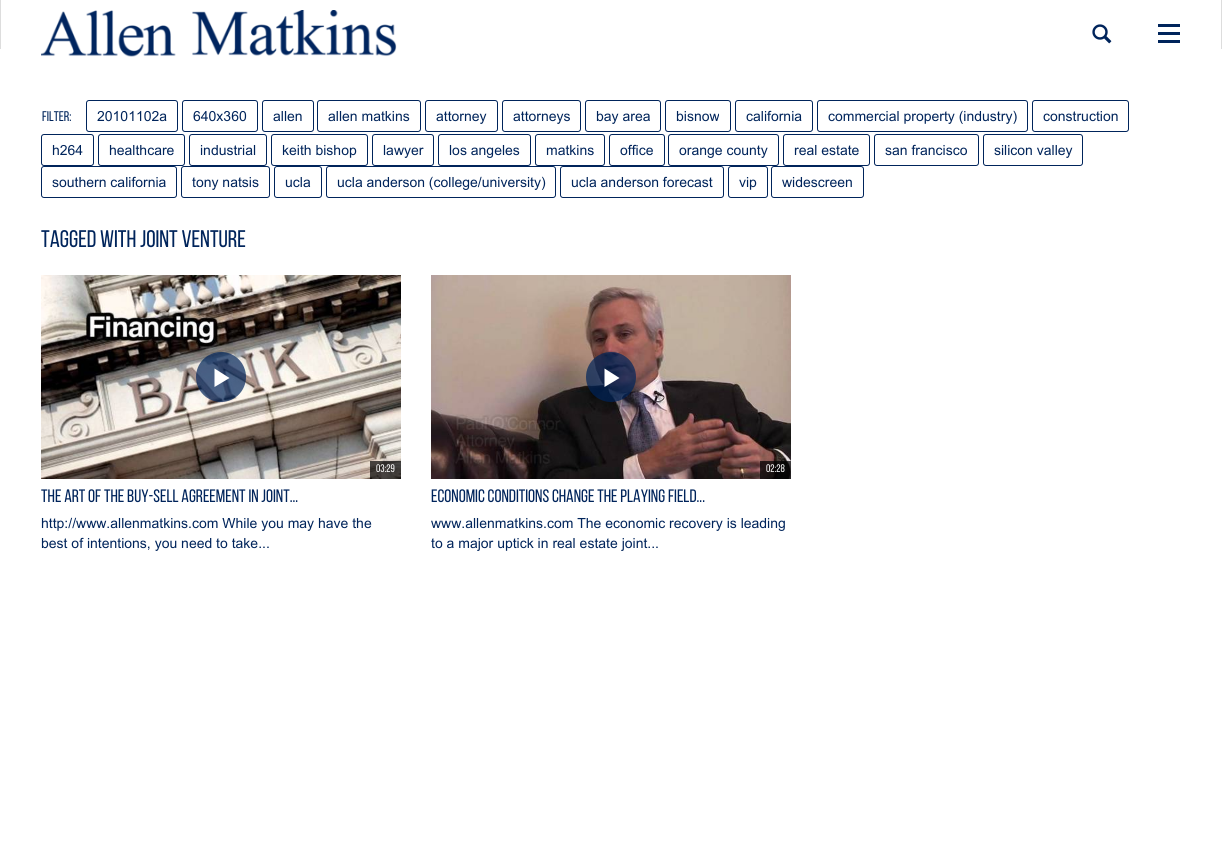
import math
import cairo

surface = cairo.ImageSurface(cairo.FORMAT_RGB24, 1222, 866)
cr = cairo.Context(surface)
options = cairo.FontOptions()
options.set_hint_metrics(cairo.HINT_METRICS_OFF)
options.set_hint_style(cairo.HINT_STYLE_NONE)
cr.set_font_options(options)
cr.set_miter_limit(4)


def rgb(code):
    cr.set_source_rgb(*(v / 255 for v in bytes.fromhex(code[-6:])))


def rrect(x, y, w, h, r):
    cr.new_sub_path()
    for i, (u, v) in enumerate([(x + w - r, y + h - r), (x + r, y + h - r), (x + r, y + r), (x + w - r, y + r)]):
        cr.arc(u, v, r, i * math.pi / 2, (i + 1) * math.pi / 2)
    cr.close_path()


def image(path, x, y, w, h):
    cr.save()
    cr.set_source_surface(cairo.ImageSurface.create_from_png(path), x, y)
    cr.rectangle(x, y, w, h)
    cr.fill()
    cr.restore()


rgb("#ffffff")
cr.paint()
rgb("#dddddd")
cr.rectangle(1221, 0, 1, 49)
cr.fill()
cr.rectangle(0, 0, 1, 49)
cr.fill()
image("img/1.png", 41, 10, 356, 47)
image("img/2.png", 1092, 24, 20, 20)
for x, y, w, h, color in [
    (1158, 24, 22, 3, "#00245b"),
    (1158, 32, 22, 3, "#00245b"),
    (1158, 40, 22, 3, "#00245b"),
]:
    rgb(color)
    cr.rectangle(x, y, w, h)
    cr.fill()
rrect(86.5, 100.5, 91, 31, 2.5)
cr.set_line_width(1)
cr.stroke()
rrect(182.5, 100.5, 75, 31, 2.5)
cr.stroke()
rrect(262.5, 100.5, 51, 31, 2.5)
cr.stroke()
rrect(317.5, 100.5, 103, 31, 2.5)
cr.stroke()
rrect(425.5, 100.5, 72, 31, 2.5)
cr.stroke()
rrect(502.5, 100.5, 78, 31, 2.5)
cr.stroke()
rrect(585.5, 100.5, 75, 31, 2.5)
cr.stroke()
rrect(665.5, 100.5, 65, 31, 2.5)
cr.stroke()
rrect(735.5, 100.5, 77, 31, 2.5)
cr.stroke()
rrect(817.5, 100.5, 210, 31, 2.5)
cr.stroke()
rrect(1032.5, 100.5, 96, 31, 2.5)
cr.stroke()
rrect(41.5, 134.5, 52, 31, 2.5)
cr.stroke()
rrect(98.5, 134.5, 86, 31, 2.5)
cr.stroke()
rrect(189.5, 134.5, 77, 31, 2.5)
cr.stroke()
rrect(271.5, 134.5, 96, 31, 2.5)
cr.stroke()
rrect(372.5, 134.5, 61, 31, 2.5)
cr.stroke()
rrect(438.5, 134.5, 92, 31, 2.5)
cr.stroke()
rrect(535.5, 134.5, 69, 31, 2.5)
cr.stroke()
rrect(609.5, 134.5, 55, 31, 2.5)
cr.stroke()
rrect(668.5, 134.5, 110, 31, 2.5)
cr.stroke()
rrect(783.5, 134.5, 86, 31, 2.5)
cr.stroke()
rrect(874.5, 134.5, 104, 31, 2.5)
cr.stroke()
rrect(983.5, 134.5, 99, 31, 2.5)
cr.stroke()
rrect(41.5, 166.5, 135, 31, 2.5)
cr.stroke()
rrect(181.5, 166.5, 88, 31, 2.5)
cr.stroke()
rrect(274.5, 166.5, 47, 31, 2.5)
cr.stroke()
rrect(326.5, 166.5, 229, 31, 2.5)
cr.stroke()
rrect(560.5, 166.5, 163, 31, 2.5)
cr.stroke()
rrect(728.5, 166.5, 39, 31, 2.5)
cr.stroke()
rrect(771.5, 166.5, 92, 31, 2.5)
cr.stroke()
image("img/3.png", 41, 275, 360, 204)
cr.set_source_rgba(0, 0.141, 0.357, 0.7)
cr.arc(221, 377, 25, 0, 2 * math.pi)
cr.fill()
rgb("#ffffff")
cr.new_path()
cr.move_to(214.5, 387)
cr.line_to(229.5, 378)
cr.line_to(214.5, 368.5)
cr.close_path()
cr.fill()
cr.set_source_rgba(0, 0, 0, 0.7)
cr.rectangle(370, 461, 31, 18)
cr.fill()
image("img/4.png", 431, 275, 360, 204)
cr.set_source_rgba(0, 0.141, 0.357, 0.7)
cr.arc(611, 377, 25, 0, 2 * math.pi)
cr.fill()
rgb("#ffffff")
cr.new_path()
cr.move_to(604.5, 387)
cr.line_to(619.5, 378)
cr.line_to(604.5, 368.5)
cr.close_path()
cr.fill()
cr.set_source_rgba(0, 0, 0, 0.7)
cr.rectangle(760, 461, 31, 18)
cr.fill()
cr.select_font_face("Bebas Neue")
cr.set_font_size(14)
rgb("#00245b")
cr.move_to(42, 121)
cr.show_text("Filter:")
cr.select_font_face("Arial")
for x, y, s in [
    (97, 121, "20101102a"),
    (193, 121, "640x360"),
    (273, 121, "allen"),
    (328, 121, "allen matkins"),
    (436, 121, "attorney"),
    (513, 121, "attorneys"),
    (596, 121, "bay area"),
    (676, 121, "bisnow"),
    (746, 121, "california"),
    (828, 121, "commercial property (industry)"),
    (1043, 121, "construction"),
    (52, 155, "h264"),
    (109, 155, "healthcare"),
    (200, 155, "industrial"),
    (282, 155, "keith bishop"),
    (383, 155, "lawyer"),
    (449, 155, "los angeles"),
    (546, 155, "matkins"),
    (620, 155, "office"),
    (679, 155, "orange county"),
    (794, 155, "real estate"),
    (885, 155, "san francisco"),
    (994, 155, "silicon valley"),
    (52, 187, "southern california"),
    (192, 187, "tony natsis"),
    (285, 187, "ucla"),
    (337, 187, "ucla anderson (college/university)"),
    (571, 187, "ucla anderson forecast"),
    (739, 187, "vip"),
    (782, 187, "widescreen"),
]:
    cr.move_to(x, y)
    cr.show_text(s)
cr.select_font_face("Bebas Neue")
cr.set_font_size(24)
cr.move_to(41, 247)
cr.show_text("Tagged with joint venture")
cr.set_font_size(11)
rgb("#ffffff")
cr.move_to(376, 472)
cr.show_text("03:29")
cr.set_font_size(18)
rgb("#00245b")
cr.move_to(41, 502)
cr.show_text("The Art of the Buy-Sell Agreement in Joint...")
cr.select_font_face("Arial")
cr.set_font_size(14)
cr.move_to(41, 528)
cr.show_text("http://www.allenmatkins.com While you may have the")
cr.move_to(41, 548)
cr.show_text("best of intentions, you need to take...")
cr.select_font_face("Bebas Neue")
cr.set_font_size(11)
rgb("#ffffff")
cr.move_to(766, 472)
cr.show_text("02:28")
cr.set_font_size(18)
rgb("#00245b")
cr.move_to(431, 502)
cr.show_text("Economic Conditions Change the Playing Field...")
cr.select_font_face("Arial")
cr.set_font_size(14)
cr.move_to(431, 528)
cr.show_text("www.allenmatkins.com The economic recovery is leading")
cr.move_to(431, 548)
cr.show_text("to a major uptick in real estate joint...")
surface.write_to_png("page.png")
